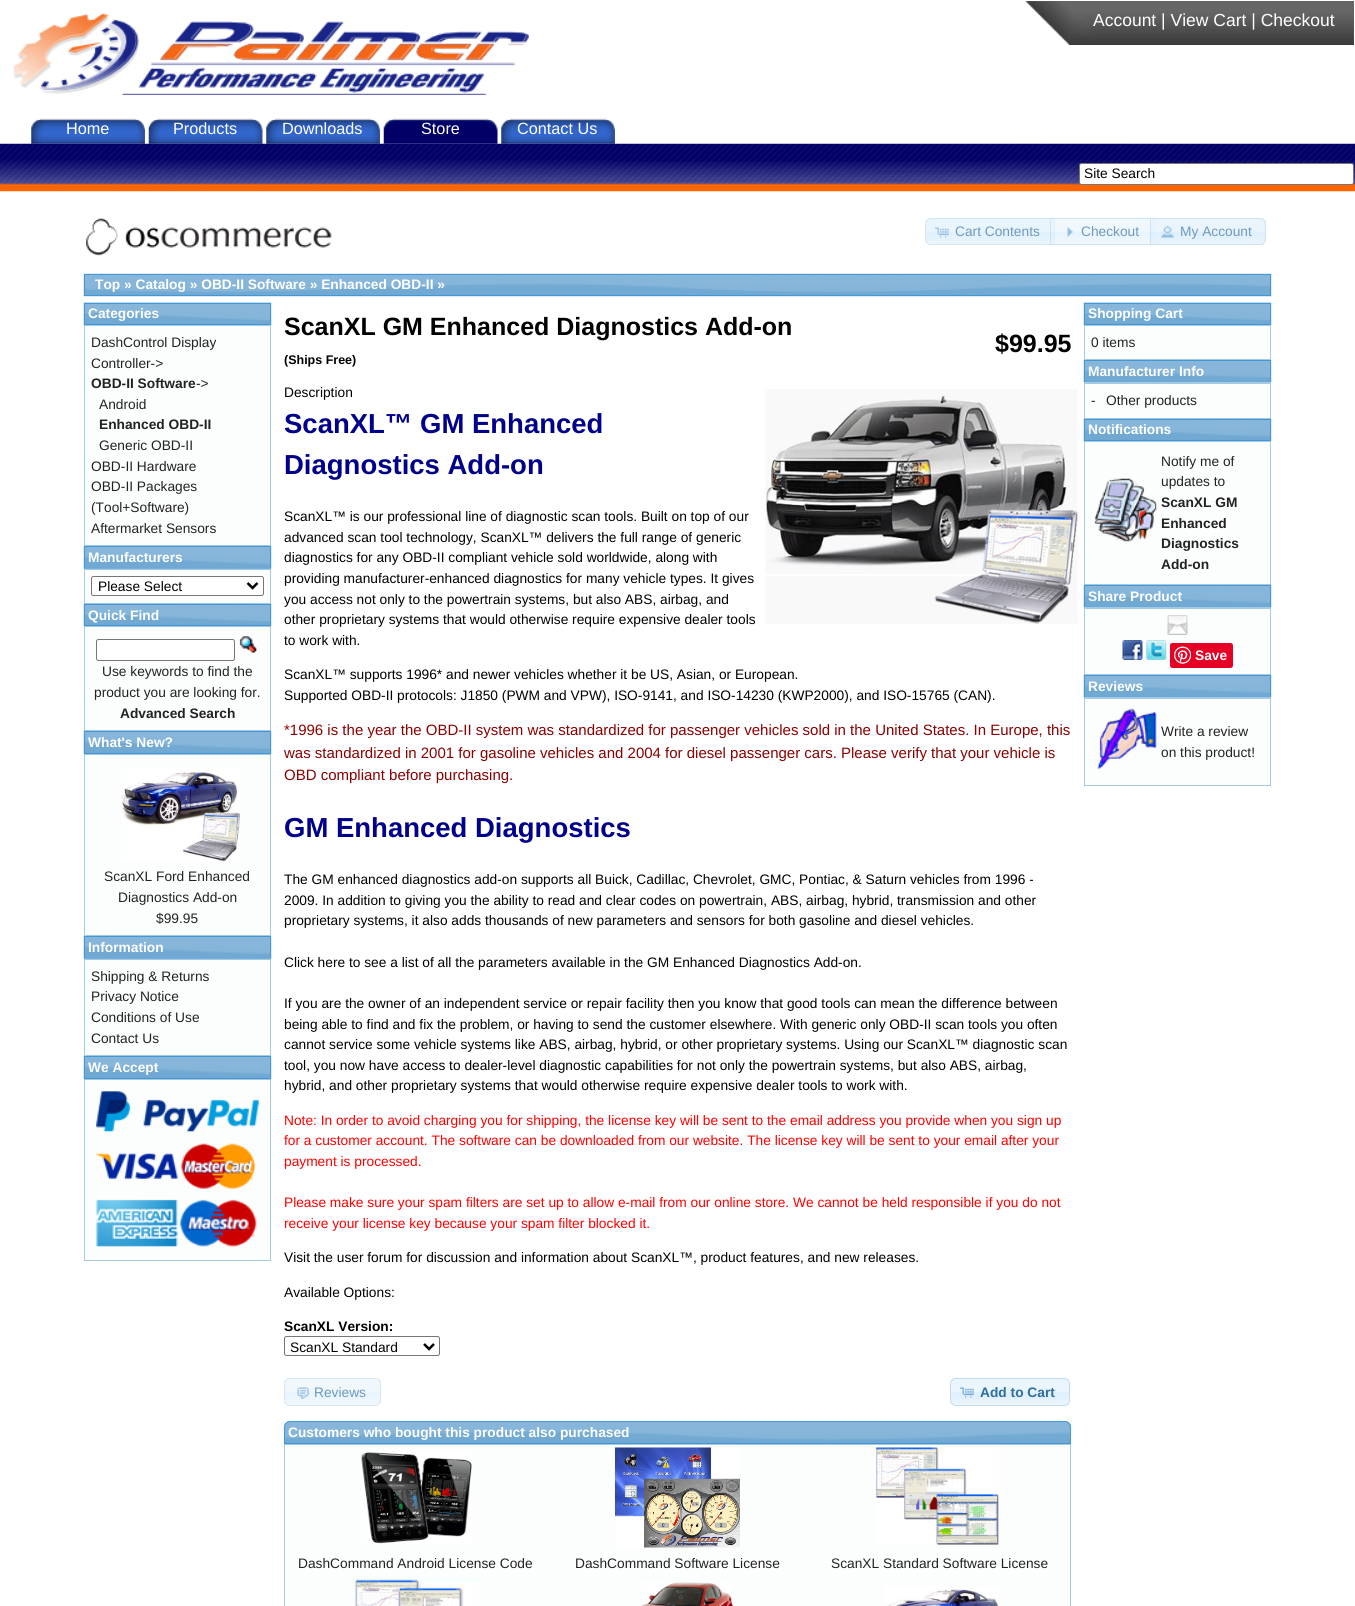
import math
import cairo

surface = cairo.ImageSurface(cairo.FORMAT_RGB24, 1355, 1606)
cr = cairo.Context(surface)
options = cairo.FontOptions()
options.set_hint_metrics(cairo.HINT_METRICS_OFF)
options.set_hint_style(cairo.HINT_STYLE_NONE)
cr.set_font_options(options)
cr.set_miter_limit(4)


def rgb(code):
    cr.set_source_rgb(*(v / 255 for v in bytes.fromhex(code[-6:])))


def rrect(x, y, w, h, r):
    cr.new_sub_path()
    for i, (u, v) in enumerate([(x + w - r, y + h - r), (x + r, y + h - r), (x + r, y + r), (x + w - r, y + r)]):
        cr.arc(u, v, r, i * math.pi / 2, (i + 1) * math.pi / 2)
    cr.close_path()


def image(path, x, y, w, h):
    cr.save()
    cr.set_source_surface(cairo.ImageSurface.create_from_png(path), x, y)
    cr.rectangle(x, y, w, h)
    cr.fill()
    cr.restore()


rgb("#ffffff")
cr.paint()
image("img/1.png", 13, 13, 516, 82)
rgb("#666666")
cr.rectangle(1025, 1, 329, 44)
cr.fill()
image("img/2.png", 1025, 1, 329, 44)
image("img/3.png", 31, 118, 114, 26)
image("img/4.png", 148, 118, 115, 26)
image("img/3.png", 266, 118, 114, 26)
image("img/5.png", 383, 118, 115, 26)
image("img/3.png", 501, 118, 114, 26)
image("img/6.png", 0, 143, 1355, 49)
rgb("#ffffff")
rrect(1079.5, 163.5, 274, 21, 2)
cr.fill_preserve()
rgb("#767676")
cr.set_line_width(1)
cr.stroke()
image("img/7.png", 86, 218, 246, 38)
rgb("#e9f4fd")
cr.new_path()
cr.move_to(931, 218)
cr.line_to(1055, 218)
cr.line_to(1055, 245)
cr.line_to(931, 245)
cr.curve_to(927.5, 245, 925, 242.5, 925, 239)
cr.line_to(925, 224)
cr.curve_to(925, 220.5, 927.5, 218, 931, 218)
cr.close_path()
cr.fill()
image("img/8.png", 925, 217, 130, 24)
cr.new_path()
cr.move_to(931, 218.5)
cr.line_to(1054.5, 218.5)
cr.line_to(1054.5, 244.5)
cr.line_to(931, 244.5)
cr.curve_to(928, 244.5, 925.5, 242, 925.5, 239)
cr.line_to(925.5, 224)
cr.curve_to(925.5, 221, 928, 218.5, 931, 218.5)
cr.close_path()
rgb("#d6e6f2")
cr.stroke()
image("img/9.png", 935, 227, 14, 11)
image("img/10.png", 1050, 217, 104, 28)
cr.rectangle(1050.5, 218.5, 103, 26)
cr.set_source_rgba(0.773, 0.859, 0.925, 0.7)
cr.stroke()
image("img/11.png", 1067, 227, 6, 10)
cr.set_source_rgba(0.875, 0.937, 0.988, 0.7)
cr.new_path()
cr.move_to(1150, 218)
cr.line_to(1260, 218)
cr.curve_to(1263.5, 218, 1266, 220.5, 1266, 224)
cr.line_to(1266, 239)
cr.curve_to(1266, 242.5, 1263.5, 245, 1260, 245)
cr.line_to(1150, 245)
cr.close_path()
cr.fill()
image("img/12.png", 1150, 217, 116, 28)
cr.new_path()
cr.move_to(1150.5, 218.5)
cr.line_to(1260, 218.5)
cr.curve_to(1263, 218.5, 1265.5, 221, 1265.5, 224)
cr.line_to(1265.5, 239)
cr.curve_to(1265.5, 242, 1263, 244.5, 1260, 244.5)
cr.line_to(1150.5, 244.5)
cr.close_path()
cr.set_source_rgba(0.773, 0.859, 0.925, 0.7)
cr.stroke()
image("img/13.png", 1161, 226, 13, 12)
image("img/14.png", 83, 273, 1189, 24)
cr.rectangle(84.5, 274.5, 1186, 21)
rgb("#4297d7")
cr.stroke()
image("img/15.png", 83, 302, 189, 23)
cr.rectangle(84.5, 303.5, 186, 21)
cr.stroke()
rgb("#fcfdfd")
cr.rectangle(84.5, 325.5, 186, 220)
cr.fill_preserve()
rgb("#a6c9e2")
cr.stroke()
image("img/16.png", 83, 546, 189, 23)
cr.rectangle(84.5, 546.5, 186, 22)
rgb("#4297d7")
cr.stroke()
rgb("#fcfdfd")
cr.rectangle(84.5, 569.5, 186, 34)
cr.fill_preserve()
rgb("#a6c9e2")
cr.stroke()
rgb("#71b1e1")
cr.rectangle(84, 568, 187, 1)
cr.fill()
rgb("#ffffff")
rrect(91.5, 576.5, 172, 19, 2)
cr.fill_preserve()
rgb("#767676")
cr.stroke()
cr.new_path()
cr.move_to(247.5, 583)
cr.line_to(252.5, 588)
cr.line_to(257.5, 583)
rgb("#000000")
cr.set_line_width(2.5)
cr.stroke()
image("img/17.png", 83, 603, 189, 24)
cr.rectangle(84.5, 604.5, 186, 21)
rgb("#4297d7")
cr.set_line_width(1)
cr.stroke()
rgb("#fcfdfd")
cr.rectangle(84.5, 626.5, 186, 104)
cr.fill_preserve()
rgb("#a6c9e2")
cr.stroke()
rgb("#ffffff")
rrect(96.5, 639.5, 138, 21, 2)
cr.fill_preserve()
rgb("#767676")
cr.stroke()
image("img/18.png", 239, 636, 18, 17)
image("img/16.png", 83, 731, 189, 23)
cr.rectangle(84.5, 731.5, 186, 22)
rgb("#4297d7")
cr.stroke()
rgb("#fcfdfd")
cr.rectangle(84.5, 754.5, 186, 181)
cr.fill_preserve()
rgb("#a6c9e2")
cr.stroke()
image("img/19.png", 121, 768, 119, 94)
image("img/16.png", 83, 936, 189, 23)
cr.rectangle(84.5, 936.5, 186, 22)
rgb("#4297d7")
cr.stroke()
rgb("#fcfdfd")
cr.rectangle(84.5, 959.5, 186, 96)
cr.fill_preserve()
rgb("#a6c9e2")
cr.stroke()
rgb("#70b0e0")
cr.rectangle(84, 958, 187, 1)
cr.fill()
image("img/16.png", 83, 1056, 189, 23)
cr.rectangle(84.5, 1056.5, 186, 22)
rgb("#4297d7")
cr.stroke()
rgb("#fcfdfd")
cr.rectangle(84.5, 1079.5, 186, 181)
cr.fill_preserve()
rgb("#a6c9e2")
cr.stroke()
image("img/20.png", 96, 1091, 163, 41)
image("img/21.png", 96, 1153, 82, 26)
image("img/22.png", 181, 1143, 75, 46)
image("img/23.png", 96, 1199, 82, 48)
image("img/24.png", 179, 1199, 78, 48)
rrect(284.5, 1336.5, 155, 19, 2)
rgb("#767676")
cr.stroke()
cr.new_path()
cr.move_to(424, 1344)
cr.line_to(429, 1349)
cr.line_to(434, 1344)
rgb("#000000")
cr.set_line_width(2.5)
cr.stroke()
image("img/25.png", 765, 389, 313, 235)
image("img/26.png", 284, 1377, 97, 29)
rrect(284.5, 1378.5, 96, 27, 5.5)
rgb("#d6e6f2")
cr.set_line_width(1)
cr.stroke()
image("img/27.png", 297, 1387, 12, 12)
image("img/28.png", 950, 1377, 120, 29)
rrect(950.5, 1378.5, 119, 27, 5.5)
rgb("#c5dbec")
cr.stroke()
image("img/29.png", 959, 1387, 15, 11)
image("img/30.png", 283, 1421, 789, 23)
cr.new_path()
cr.move_to(290, 1421.5)
cr.line_to(1065, 1421.5)
cr.curve_to(1068, 1421.5, 1070.5, 1424, 1070.5, 1427)
cr.line_to(1070.5, 1443.5)
cr.line_to(284.5, 1443.5)
cr.line_to(284.5, 1427)
cr.curve_to(284.5, 1424, 287, 1421.5, 290, 1421.5)
cr.close_path()
rgb("#4297d7")
cr.stroke()
rgb("#fcfdfd")
cr.rectangle(284.5, 1444.5, 786, 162)
cr.fill_preserve()
rgb("#a6c9e2")
cr.stroke()
image("img/31.png", 361, 1452, 111, 92)
image("img/32.png", 615, 1447, 125, 101)
image("img/33.png", 876, 1447, 123, 98)
image("img/34.png", 354, 1579, 125, 27)
image("img/35.png", 641, 1582, 92, 24)
image("img/36.png", 885, 1586, 114, 20)
image("img/37.png", 1083, 302, 189, 23)
cr.rectangle(1084.5, 303.5, 186, 21)
rgb("#4297d7")
cr.stroke()
rgb("#fcfdfd")
cr.rectangle(1084.5, 325.5, 186, 34)
cr.fill_preserve()
rgb("#a6c9e2")
cr.stroke()
image("img/38.png", 1083, 360, 189, 23)
cr.rectangle(1084.5, 360.5, 186, 22)
rgb("#4297d7")
cr.stroke()
rgb("#fcfdfd")
cr.rectangle(1084.5, 383.5, 186, 35)
cr.fill_preserve()
rgb("#a6c9e2")
cr.stroke()
rgb("#a0cbeb")
cr.rectangle(1084, 382, 187, 1)
cr.fill()
image("img/17.png", 1083, 418, 189, 24)
cr.rectangle(1084.5, 419.5, 186, 21)
rgb("#4297d7")
cr.stroke()
rgb("#fcfdfd")
cr.rectangle(1084.5, 441.5, 186, 143)
cr.fill_preserve()
rgb("#a6c9e2")
cr.stroke()
image("img/39.png", 1094, 478, 63, 64)
image("img/40.png", 1083, 585, 189, 23)
cr.rectangle(1084.5, 585.5, 186, 22)
rgb("#4297d7")
cr.stroke()
rgb("#fcfdfd")
cr.rectangle(1084.5, 608.5, 186, 66)
cr.fill_preserve()
rgb("#a6c9e2")
cr.stroke()
rgb("#a0caea")
cr.rectangle(1084, 607, 187, 1)
cr.fill()
image("img/41.png", 1167, 615, 21, 20)
image("img/42.png", 1122, 640, 21, 20)
image("img/43.png", 1146, 640, 21, 20)
rgb("#e60023")
rrect(1170, 643, 63, 25, 2.5)
cr.fill()
image("img/44.png", 1174, 646, 17, 18)
image("img/38.png", 1083, 675, 189, 23)
cr.rectangle(1084.5, 675.5, 186, 22)
rgb("#4297d7")
cr.stroke()
rgb("#fcfdfd")
cr.rectangle(1084.5, 698.5, 186, 87)
cr.fill_preserve()
rgb("#a6c9e2")
cr.stroke()
rgb("#9fcaea")
cr.rectangle(1084, 697, 187, 1)
cr.fill()
image("img/45.png", 1097, 708, 60, 61)
cr.select_font_face("Liberation Sans")
cr.set_font_size(17.5)
rgb("#ffffff")
cr.move_to(1093, 26)
cr.show_text("Account | View Cart | Checkout")
cr.set_font_size(16.25)
for x, y, s in [
    (66, 134, "Home"),
    (173, 134, "Products"),
    (282, 134, "Downloads"),
    (421, 134, "Store"),
    (517, 134, "Contact Us"),
]:
    cr.move_to(x, y)
    cr.show_text(s)
cr.set_font_size(13.75)
rgb("#000000")
cr.move_to(1084, 178)
cr.show_text("Site Search")
rgb("#6d9abb")
for x, y, s in [
    (955, 236, "Cart Contents"),
    (1081, 236, "Checkout"),
    (1180, 236, "My Account"),
]:
    cr.move_to(x, y)
    cr.show_text(s)
cr.select_font_face("Liberation Sans", cairo.FONT_SLANT_NORMAL, cairo.FONT_WEIGHT_BOLD)
rgb("#ffffff")
cr.move_to(95, 289)
cr.show_text("Top » Catalog » OBD-II Software » Enhanced OBD-II »")
cr.move_to(88, 318)
cr.show_text("Categories")
cr.select_font_face("Liberation Sans")
rgb("#222222")
cr.move_to(91, 347)
cr.show_text("DashControl Display")
cr.move_to(91, 368)
cr.show_text("Controller->")
cr.select_font_face("Liberation Sans", cairo.FONT_SLANT_NORMAL, cairo.FONT_WEIGHT_BOLD)
cr.move_to(91, 388)
cr.show_text("OBD-II Software")
cr.select_font_face("Liberation Sans")
cr.move_to(196, 388)
cr.show_text("->")
cr.move_to(99, 409)
cr.show_text("Android")
cr.select_font_face("Liberation Sans", cairo.FONT_SLANT_NORMAL, cairo.FONT_WEIGHT_BOLD)
cr.move_to(99, 429)
cr.show_text("Enhanced OBD-II")
cr.select_font_face("Liberation Sans")
for x, y, s in [
    (99, 450, "Generic OBD-II"),
    (91, 471, "OBD-II Hardware"),
    (91, 491, "OBD-II Packages"),
    (91, 512, "(Tool+Software)"),
    (91, 533, "Aftermarket Sensors"),
]:
    cr.move_to(x, y)
    cr.show_text(s)
cr.select_font_face("Liberation Sans", cairo.FONT_SLANT_NORMAL, cairo.FONT_WEIGHT_BOLD)
rgb("#ffffff")
cr.move_to(88, 562)
cr.show_text("Manufacturers")
cr.select_font_face("Liberation Sans")
rgb("#000000")
cr.move_to(98, 591)
cr.show_text("Please Select")
cr.select_font_face("Liberation Sans", cairo.FONT_SLANT_NORMAL, cairo.FONT_WEIGHT_BOLD)
rgb("#ffffff")
cr.move_to(88, 620)
cr.show_text("Quick Find")
cr.select_font_face("Liberation Sans")
rgb("#222222")
cr.move_to(102, 676)
cr.show_text("Use keywords to find the")
cr.move_to(94, 697)
cr.show_text("product you are looking for.")
cr.select_font_face("Liberation Sans", cairo.FONT_SLANT_NORMAL, cairo.FONT_WEIGHT_BOLD)
cr.move_to(120, 718)
cr.show_text("Advanced Search")
rgb("#ffffff")
cr.move_to(88, 747)
cr.show_text("What's New?")
cr.select_font_face("Liberation Sans")
rgb("#222222")
for x, y, s in [
    (104, 881, "ScanXL Ford Enhanced"),
    (118, 902, "Diagnostics Add-on"),
    (156, 923, "$99.95"),
]:
    cr.move_to(x, y)
    cr.show_text(s)
cr.select_font_face("Liberation Sans", cairo.FONT_SLANT_NORMAL, cairo.FONT_WEIGHT_BOLD)
rgb("#ffffff")
cr.move_to(88, 952)
cr.show_text("Information")
cr.select_font_face("Liberation Sans")
rgb("#222222")
for x, y, s in [
    (91, 981, "Shipping & Returns"),
    (91, 1001, "Privacy Notice"),
    (91, 1022, "Conditions of Use"),
    (91, 1043, "Contact Us"),
]:
    cr.move_to(x, y)
    cr.show_text(s)
cr.select_font_face("Liberation Sans", cairo.FONT_SLANT_NORMAL, cairo.FONT_WEIGHT_BOLD)
rgb("#ffffff")
cr.move_to(88, 1072)
cr.show_text("We Accept")
cr.set_font_size(25)
rgb("#000000")
cr.move_to(284, 335)
cr.show_text("ScanXL GM Enhanced Diagnostics Add-on")
cr.set_font_size(12.5)
cr.move_to(284, 364)
cr.show_text("(Ships Free)")
cr.set_font_size(25)
cr.move_to(995, 352)
cr.show_text("$99.95")
cr.select_font_face("Liberation Sans")
cr.set_font_size(13.75)
cr.move_to(284, 397)
cr.show_text("Description")
cr.select_font_face("Liberation Sans", cairo.FONT_SLANT_NORMAL, cairo.FONT_WEIGHT_BOLD)
cr.set_font_size(27.5)
rgb("#00008b")
cr.move_to(284, 433)
cr.show_text("ScanXL™ GM Enhanced")
cr.move_to(284, 474)
cr.show_text("Diagnostics Add-on")
cr.select_font_face("Liberation Sans")
cr.set_font_size(13.75)
rgb("#000000")
for x, y, s in [
    (284, 521, "ScanXL™ is our professional line of diagnostic scan tools. Built on top of our"),
    (284, 542, "advanced scan tool technology, ScanXL™ delivers the full range of generic"),
    (284, 562, "diagnostics for any OBD-II compliant vehicle sold worldwide, along with"),
    (284, 583, "providing manufacturer-enhanced diagnostics for many vehicle types. It gives"),
    (284, 604, "you access not only to the powertrain systems, but also ABS, airbag, and"),
    (284, 624, "other proprietary systems that would otherwise require expensive dealer tools"),
    (284, 645, "to work with."),
    (284, 679, "ScanXL™ supports 1996* and newer vehicles whether it be US, Asian, or European."),
    (284, 700, "Supported OBD-II protocols: J1850 (PWM and VPW), ISO-9141, and ISO-14230 (KWP2000), and ISO-15765 (CAN)."),
]:
    cr.move_to(x, y)
    cr.show_text(s)
cr.set_font_size(15)
rgb("#8b0000")
for x, y, s in [
    (284, 735, "*1996 is the year the OBD-II system was standardized for passenger vehicles sold in the United States. In Europe, this"),
    (284, 758, "was standardized in 2001 for gasoline vehicles and 2004 for diesel passenger cars. Please verify that your vehicle is"),
    (284, 780, "OBD compliant before purchasing."),
]:
    cr.move_to(x, y)
    cr.show_text(s)
cr.select_font_face("Liberation Sans", cairo.FONT_SLANT_NORMAL, cairo.FONT_WEIGHT_BOLD)
cr.set_font_size(27.5)
rgb("#00008b")
cr.move_to(284, 837)
cr.show_text("GM Enhanced Diagnostics")
cr.select_font_face("Liberation Sans")
cr.set_font_size(13.75)
rgb("#000000")
for x, y, s in [
    (284, 884, "The GM enhanced diagnostics add-on supports all Buick, Cadillac, Chevrolet, GMC, Pontiac, & Saturn vehicles from 1996 -"),
    (284, 905, "2009. In addition to giving you the ability to read and clear codes on powertrain, ABS, airbag, hybrid, transmission and other"),
    (284, 925, "proprietary systems, it also adds thousands of new parameters and sensors for both gasoline and diesel vehicles."),
    (284, 967, "Click here to see a list of all the parameters available in the GM Enhanced Diagnostics Add-on."),
    (284, 1008, "If you are the owner of an independent service or repair facility then you know that good tools can mean the difference between"),
    (284, 1029, "being able to find and fix the problem, or having to send the customer elsewhere. With generic only OBD-II scan tools you often"),
    (284, 1049, "cannot service some vehicle systems like ABS, airbag, hybrid, or other proprietary systems. Using our ScanXL™ diagnostic scan"),
    (284, 1070, "tool, you now have access to dealer-level diagnostic capabilities for not only the powertrain systems, but also ABS, airbag,"),
    (284, 1090, "hybrid, and other proprietary systems that would otherwise require expensive dealer tools to work with."),
]:
    cr.move_to(x, y)
    cr.show_text(s)
rgb("#ff0000")
for x, y, s in [
    (284, 1125, "Note: In order to avoid charging you for shipping, the license key will be sent to the email address you provide when you sign up"),
    (284, 1145, "for a customer account. The software can be downloaded from our website. The license key will be sent to your email after your"),
    (284, 1166, "payment is processed."),
    (284, 1207, "Please make sure your spam filters are set up to allow e-mail from our online store. We cannot be held responsible if you do not"),
    (284, 1228, "receive your license key because your spam filter blocked it."),
]:
    cr.move_to(x, y)
    cr.show_text(s)
rgb("#000000")
cr.move_to(284, 1262)
cr.show_text("Visit the user forum for discussion and information about ScanXL™, product features, and new releases.")
cr.move_to(284, 1297)
cr.show_text("Available Options:")
cr.select_font_face("Liberation Sans", cairo.FONT_SLANT_NORMAL, cairo.FONT_WEIGHT_BOLD)
cr.move_to(284, 1331)
cr.show_text("ScanXL Version:")
cr.select_font_face("Liberation Sans")
cr.move_to(290, 1352)
cr.show_text("ScanXL Standard")
rgb("#6d9abb")
cr.move_to(314, 1397)
cr.show_text("Reviews")
cr.select_font_face("Liberation Sans", cairo.FONT_SLANT_NORMAL, cairo.FONT_WEIGHT_BOLD)
rgb("#2e6e9e")
cr.move_to(980, 1397)
cr.show_text("Add to Cart")
rgb("#ffffff")
cr.move_to(288, 1437)
cr.show_text("Customers who bought this product also purchased")
cr.select_font_face("Liberation Sans")
rgb("#222222")
for x, y, s in [
    (298, 1568, "DashCommand Android License Code"),
    (575, 1568, "DashCommand Software License"),
    (831, 1568, "ScanXL Standard Software License"),
]:
    cr.move_to(x, y)
    cr.show_text(s)
cr.select_font_face("Liberation Sans", cairo.FONT_SLANT_NORMAL, cairo.FONT_WEIGHT_BOLD)
rgb("#ffffff")
cr.move_to(1088, 318)
cr.show_text("Shopping Cart")
cr.select_font_face("Liberation Sans")
rgb("#222222")
cr.move_to(1091, 347)
cr.show_text("0 items")
cr.select_font_face("Liberation Sans", cairo.FONT_SLANT_NORMAL, cairo.FONT_WEIGHT_BOLD)
rgb("#ffffff")
cr.move_to(1088, 376)
cr.show_text("Manufacturer Info")
cr.select_font_face("Liberation Sans")
rgb("#222222")
cr.move_to(1091, 405)
cr.show_text("-")
cr.move_to(1106, 405)
cr.show_text("Other products")
cr.select_font_face("Liberation Sans", cairo.FONT_SLANT_NORMAL, cairo.FONT_WEIGHT_BOLD)
rgb("#ffffff")
cr.move_to(1088, 434)
cr.show_text("Notifications")
cr.select_font_face("Liberation Sans")
rgb("#222222")
cr.move_to(1161, 466)
cr.show_text("Notify me of")
cr.move_to(1161, 486)
cr.show_text("updates to")
cr.select_font_face("Liberation Sans", cairo.FONT_SLANT_NORMAL, cairo.FONT_WEIGHT_BOLD)
for x, y, s in [
    (1161, 507, "ScanXL GM"),
    (1161, 528, "Enhanced"),
    (1161, 548, "Diagnostics"),
    (1161, 569, "Add-on"),
]:
    cr.move_to(x, y)
    cr.show_text(s)
rgb("#ffffff")
for x, y, s in [
    (1088, 601, "Share Product"),
    (1195, 660, "Save"),
    (1088, 691, "Reviews"),
]:
    cr.move_to(x, y)
    cr.show_text(s)
cr.select_font_face("Liberation Sans")
rgb("#222222")
cr.move_to(1161, 736)
cr.show_text("Write a review")
cr.move_to(1161, 757)
cr.show_text("on this product!")
surface.write_to_png("page.png")
